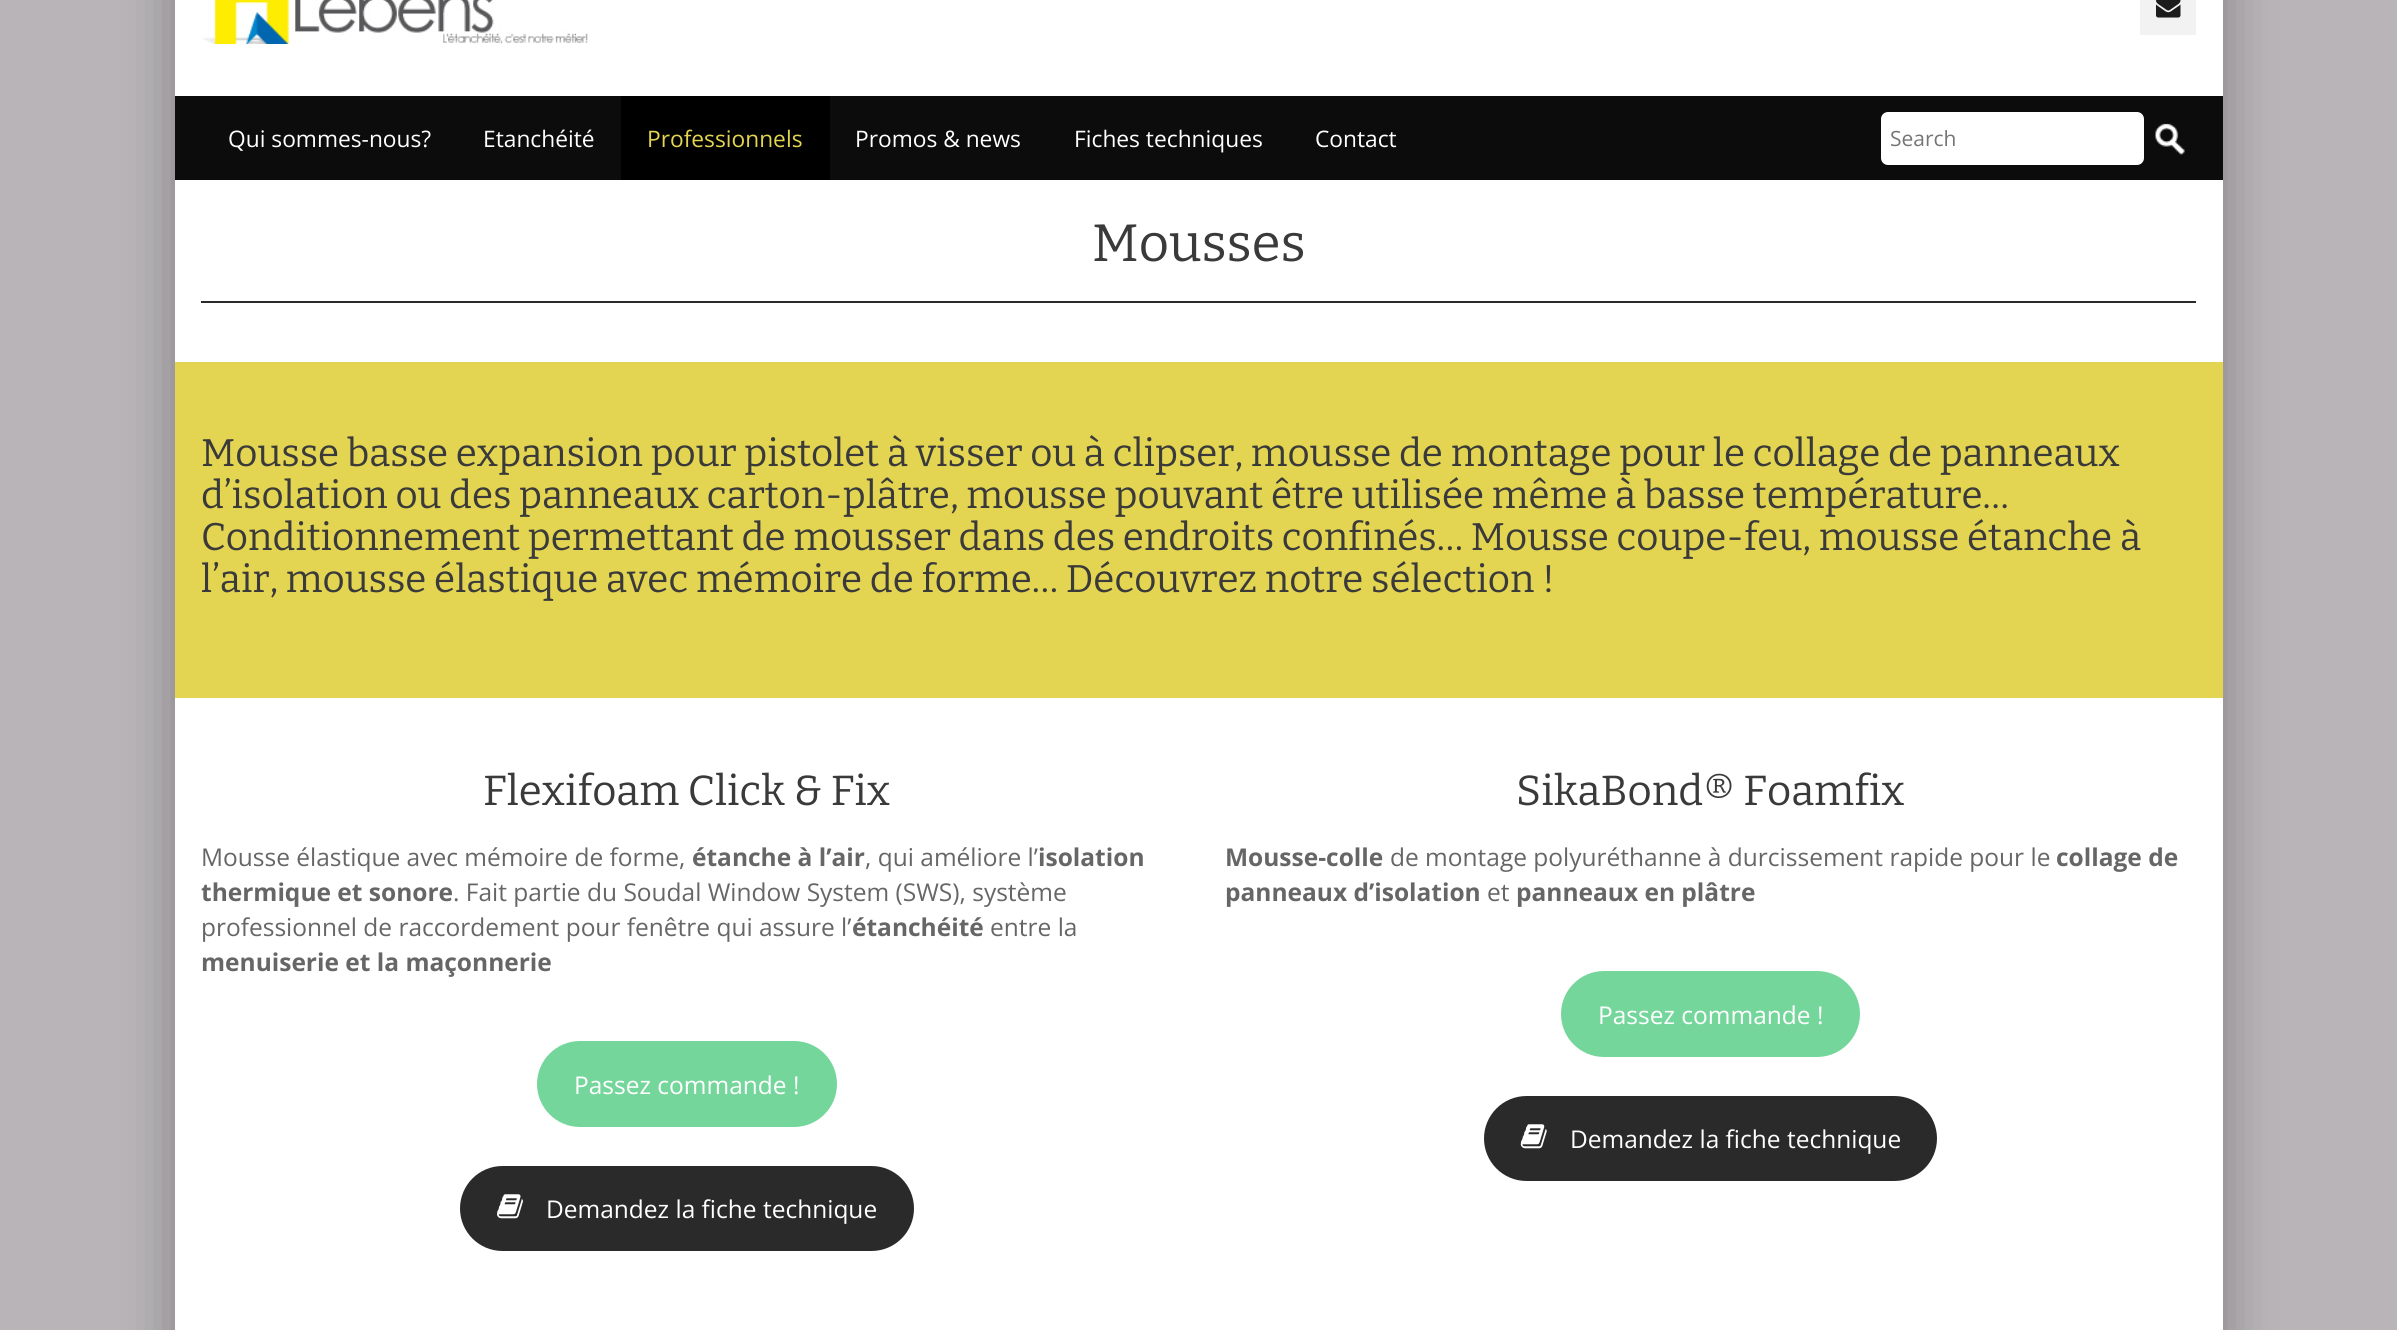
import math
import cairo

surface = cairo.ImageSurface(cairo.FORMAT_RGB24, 2397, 1330)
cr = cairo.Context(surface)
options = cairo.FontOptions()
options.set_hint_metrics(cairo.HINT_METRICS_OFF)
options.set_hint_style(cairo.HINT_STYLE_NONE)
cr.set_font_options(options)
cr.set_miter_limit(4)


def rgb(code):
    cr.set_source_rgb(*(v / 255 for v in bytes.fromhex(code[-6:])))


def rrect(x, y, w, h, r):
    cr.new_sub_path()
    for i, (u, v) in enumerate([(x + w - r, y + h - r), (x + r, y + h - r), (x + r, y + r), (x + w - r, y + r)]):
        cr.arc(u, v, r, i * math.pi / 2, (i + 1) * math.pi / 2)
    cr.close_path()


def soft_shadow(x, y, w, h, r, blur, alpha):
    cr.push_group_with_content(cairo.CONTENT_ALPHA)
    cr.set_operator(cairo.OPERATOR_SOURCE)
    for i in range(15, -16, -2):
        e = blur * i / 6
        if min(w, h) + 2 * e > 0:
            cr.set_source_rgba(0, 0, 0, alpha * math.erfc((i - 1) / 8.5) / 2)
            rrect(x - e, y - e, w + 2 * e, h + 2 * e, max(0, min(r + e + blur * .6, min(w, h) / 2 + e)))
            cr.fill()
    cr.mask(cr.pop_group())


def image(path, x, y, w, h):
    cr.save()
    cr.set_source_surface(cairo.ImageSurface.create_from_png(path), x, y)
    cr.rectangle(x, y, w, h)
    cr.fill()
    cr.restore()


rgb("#b8b4b8")
cr.paint()
rgb("#000000")
soft_shadow(175, -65, 2048, 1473, 0, 26, 0.3)
rgb("#ffffff")
cr.rectangle(175, 0, 2048, 1330)
cr.fill()
image("img/1.png", 202, 0, 386, 44)
rgb("#f2f2f2")
cr.rectangle(2140, 0, 56, 35)
cr.fill()
image("img/2.png", 2156, 0, 25, 18)
rgb("#0c0c0c")
cr.rectangle(175, 96, 2048, 84)
cr.fill()
rgb("#000000")
cr.rectangle(621, 96, 209, 84)
cr.fill()
rgb("#ffffff")
rrect(1881, 112, 263, 53, 7)
cr.fill()
image("img/3.png", 2155, 123, 30, 32)
rgb("#2a2a2a")
cr.rectangle(201, 301, 1995, 2)
cr.fill()
rgb("#e3d452")
cr.rectangle(175, 362, 2048, 336)
cr.fill()
rgb("#75d69c")
rrect(537, 1041, 300, 86, 43)
cr.fill()
rgb("#2a2a2a")
rrect(460, 1166, 454, 85, 42.5)
cr.fill()
image("img/4.png", 497, 1194, 26, 25)
rgb("#75d69c")
rrect(1561, 971, 299, 86, 43)
cr.fill()
rgb("#2a2a2a")
rrect(1484, 1096, 453, 85, 42.5)
cr.fill()
image("img/5.png", 1520, 1124, 27, 25)
cr.select_font_face("Open Sans")
cr.set_font_size(22.75)
rgb("#ffffff")
cr.move_to(228, 147)
cr.show_text("Qui sommes-nous?")
cr.move_to(483, 147)
cr.show_text("Etanchéité")
rgb("#e3d452")
cr.move_to(647, 147)
cr.show_text("Professionnels")
rgb("#ffffff")
for x, y, s in [
    (855, 147, "Promos & news"),
    (1074, 147, "Fiches techniques"),
    (1315, 147, "Contact"),
]:
    cr.move_to(x, y)
    cr.show_text(s)
cr.set_font_size(21)
rgb("#757575")
cr.move_to(1890, 146)
cr.show_text("Search")
cr.select_font_face("Bitter")
cr.set_font_size(52.5)
rgb("#3a3a3a")
cr.move_to(1092, 261)
cr.show_text("Mousses")
cr.set_font_size(38.5)
for x, y, s in [
    (201, 466, "Mousse basse expansion pour pistolet à visser ou à clipser, mousse de montage pour le collage de panneaux"),
    (201, 508, "d’isolation ou des panneaux carton-plâtre, mousse pouvant être utilisée même à basse température…"),
    (201, 550, "Conditionnement permettant de mousser dans des endroits confinés… Mousse coupe-feu, mousse étanche à"),
    (201, 592, "l’air, mousse élastique avec mémoire de forme… Découvrez notre sélection !"),
]:
    cr.move_to(x, y)
    cr.show_text(s)
cr.set_font_size(42)
cr.move_to(483, 805)
cr.show_text("Flexifoam Click & Fix")
cr.select_font_face("Open Sans")
cr.set_font_size(24.5)
rgb("#666666")
cr.move_to(201, 866)
cr.show_text("Mousse élastique avec mémoire de forme,")
cr.select_font_face("Open Sans", cairo.FONT_SLANT_NORMAL, cairo.FONT_WEIGHT_BOLD)
cr.move_to(692, 866)
cr.show_text("étanche à l’air")
cr.select_font_face("Open Sans")
cr.move_to(865, 866)
cr.show_text(", qui améliore l’")
cr.select_font_face("Open Sans", cairo.FONT_SLANT_NORMAL, cairo.FONT_WEIGHT_BOLD)
cr.move_to(1038, 866)
cr.show_text("isolation")
cr.move_to(201, 901)
cr.show_text("thermique et sonore")
cr.select_font_face("Open Sans")
cr.move_to(453, 901)
cr.show_text(". Fait partie du Soudal Window System (SWS), système")
cr.move_to(201, 936)
cr.show_text("professionnel de raccordement pour fenêtre qui assure l’")
cr.select_font_face("Open Sans", cairo.FONT_SLANT_NORMAL, cairo.FONT_WEIGHT_BOLD)
cr.move_to(852, 936)
cr.show_text("étanchéité")
cr.select_font_face("Open Sans")
cr.move_to(990, 936)
cr.show_text("entre la")
cr.select_font_face("Open Sans", cairo.FONT_SLANT_NORMAL, cairo.FONT_WEIGHT_BOLD)
cr.move_to(201, 971)
cr.show_text("menuiserie et la maçonnerie")
cr.select_font_face("Open Sans")
rgb("#ffffff")
cr.move_to(574, 1094)
cr.show_text("Passez commande !")
cr.move_to(546, 1218)
cr.show_text("Demandez la fiche technique")
cr.select_font_face("Bitter")
cr.set_font_size(42)
rgb("#3a3a3a")
cr.move_to(1516, 805)
cr.show_text("SikaBond® Foamfix")
cr.select_font_face("Open Sans", cairo.FONT_SLANT_NORMAL, cairo.FONT_WEIGHT_BOLD)
cr.set_font_size(24.5)
rgb("#666666")
cr.move_to(1225, 866)
cr.show_text("Mousse-colle")
cr.select_font_face("Open Sans")
cr.move_to(1390, 866)
cr.show_text("de montage polyuréthanne à durcissement rapide pour le")
cr.select_font_face("Open Sans", cairo.FONT_SLANT_NORMAL, cairo.FONT_WEIGHT_BOLD)
cr.move_to(2056, 866)
cr.show_text("collage de")
cr.move_to(1225, 901)
cr.show_text("panneaux d’isolation")
cr.select_font_face("Open Sans")
cr.move_to(1487, 901)
cr.show_text("et")
cr.select_font_face("Open Sans", cairo.FONT_SLANT_NORMAL, cairo.FONT_WEIGHT_BOLD)
cr.move_to(1516, 901)
cr.show_text("panneaux en plâtre")
cr.select_font_face("Open Sans")
rgb("#ffffff")
cr.move_to(1598, 1024)
cr.show_text("Passez commande !")
cr.move_to(1570, 1148)
cr.show_text("Demandez la fiche technique")
surface.write_to_png("page.png")
